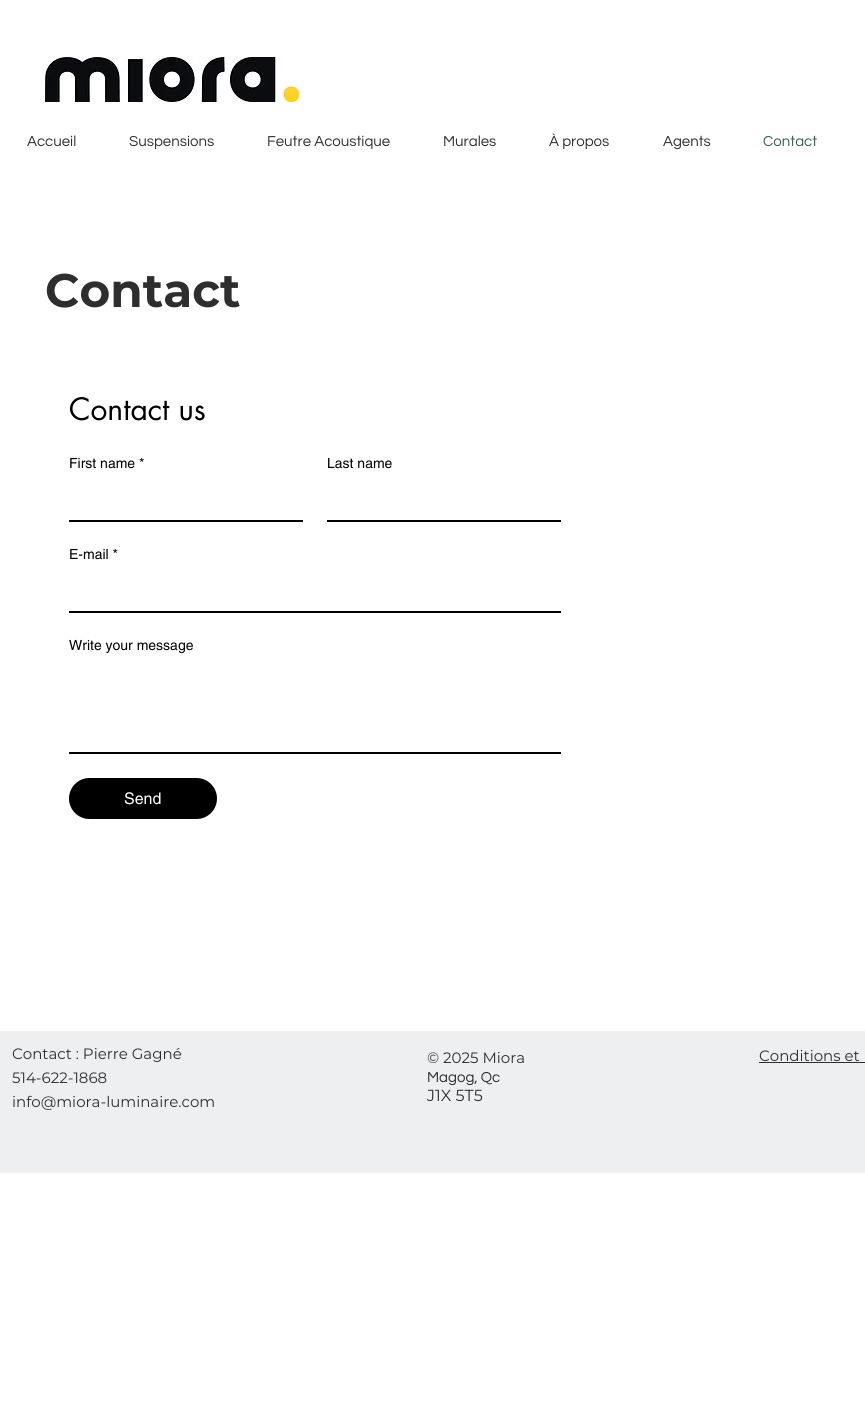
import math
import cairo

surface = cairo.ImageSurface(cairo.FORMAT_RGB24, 865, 1402)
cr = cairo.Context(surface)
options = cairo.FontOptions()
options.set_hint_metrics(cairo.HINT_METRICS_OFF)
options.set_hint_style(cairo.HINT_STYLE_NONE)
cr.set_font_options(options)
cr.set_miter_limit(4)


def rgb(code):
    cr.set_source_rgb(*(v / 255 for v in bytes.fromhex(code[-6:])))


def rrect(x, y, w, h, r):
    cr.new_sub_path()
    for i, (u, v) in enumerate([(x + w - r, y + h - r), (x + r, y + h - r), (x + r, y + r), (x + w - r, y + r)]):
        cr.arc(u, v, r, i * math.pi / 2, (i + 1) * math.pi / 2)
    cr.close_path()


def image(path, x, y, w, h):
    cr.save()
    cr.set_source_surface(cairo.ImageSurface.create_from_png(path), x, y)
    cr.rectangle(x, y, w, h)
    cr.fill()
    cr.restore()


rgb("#ffffff")
cr.paint()
image("img/1.png", 45, 57, 254, 45)
for x, y, w, h, color in [
    (69, 520, 234, 2, "#000000"),
    (327, 520, 234, 2, "#000000"),
    (69, 611, 492, 2, "#000000"),
    (69, 752, 492, 2, "#000000"),
]:
    rgb(color)
    cr.rectangle(x, y, w, h)
    cr.fill()
rrect(69, 778, 148, 41, 20.5)
cr.fill()
rgb("#edeff0")
cr.rectangle(0, 1031, 865, 142)
cr.fill()
rgb("#2f2e2e")
cr.rectangle(759, 1062, 106, 1)
cr.fill()
cr.select_font_face("Questrial")
cr.set_font_size(15)
rgb("#2e3238")
for x, y, s in [
    (27, 146, "Accueil"),
    (129, 146, "Suspensions"),
    (267, 146, "Feutre Acoustique"),
    (443, 146, "Murales"),
    (549, 146, "À propos"),
    (663, 146, "Agents"),
]:
    cr.move_to(x, y)
    cr.show_text(s)
rgb("#3f5c58")
cr.move_to(763, 146)
cr.show_text("Contact")
cr.select_font_face("Montserrat", cairo.FONT_SLANT_NORMAL, cairo.FONT_WEIGHT_BOLD)
cr.set_font_size(47)
rgb("#2f2e2e")
cr.move_to(45, 307)
cr.show_text("Contact")
cr.select_font_face("futura")
cr.set_font_size(30)
rgb("#000000")
cr.move_to(69, 420)
cr.show_text("Contact us")
cr.select_font_face("helvetica")
cr.set_font_size(14)
for x, y, s in [
    (69, 468, "First name *"),
    (327, 468, "Last name"),
    (69, 559, "E-mail *"),
    (69, 650, "Write your message"),
]:
    cr.move_to(x, y)
    cr.show_text(s)
cr.set_font_size(16)
rgb("#ffffff")
cr.move_to(124, 804)
cr.show_text("Send")
cr.select_font_face("Montserrat")
cr.set_font_size(15)
rgb("#2f2e2e")
for x, y, s in [
    (12, 1059, "Contact : Pierre Gagné"),
    (12, 1083, "514-622-1868"),
    (12, 1107, "info@miora-luminaire.com"),
    (427, 1063, "© 2025 Miora"),
]:
    cr.move_to(x, y)
    cr.show_text(s)
cr.select_font_face("Questrial")
cr.move_to(427, 1082)
cr.show_text("Magog, Qc")
cr.select_font_face("Montserrat")
cr.set_font_size(16)
cr.move_to(427, 1101)
cr.show_text("J1X 5T5")
cr.set_font_size(15)
cr.move_to(759, 1061)
cr.show_text("Conditions et")
surface.write_to_png("page.png")
